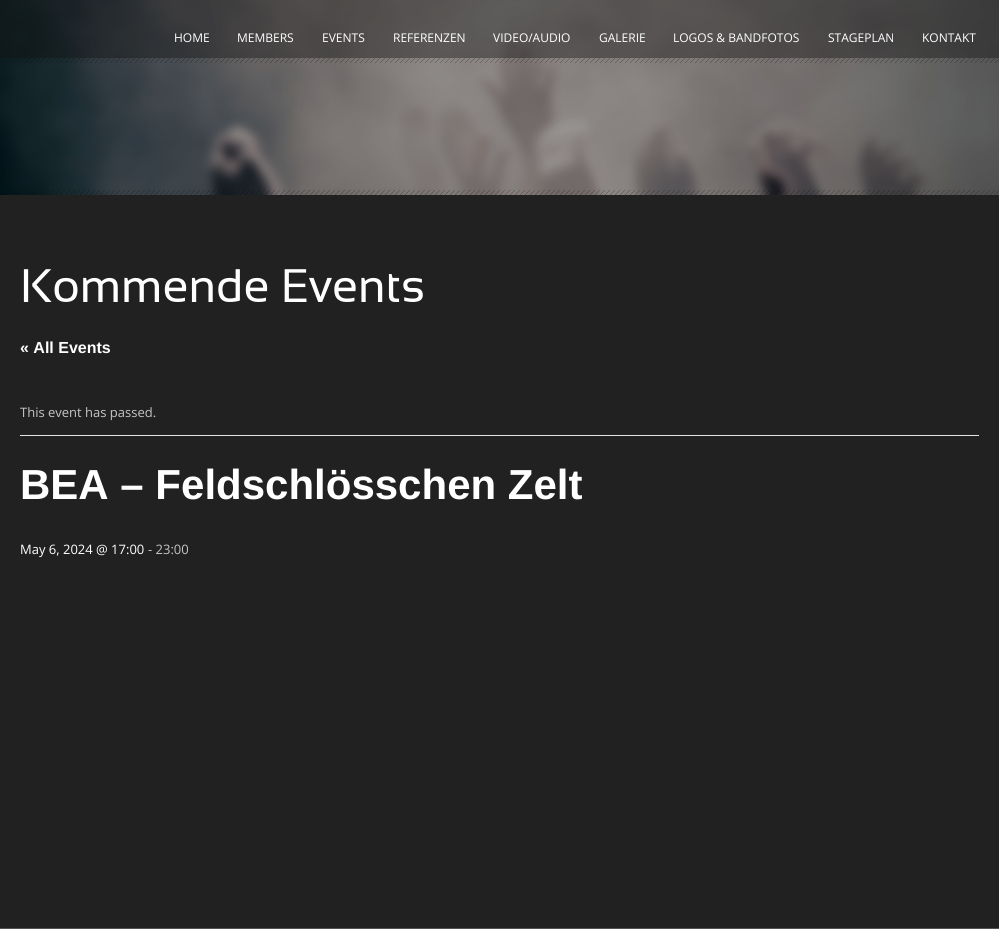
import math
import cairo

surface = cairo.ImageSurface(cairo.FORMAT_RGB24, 999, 929)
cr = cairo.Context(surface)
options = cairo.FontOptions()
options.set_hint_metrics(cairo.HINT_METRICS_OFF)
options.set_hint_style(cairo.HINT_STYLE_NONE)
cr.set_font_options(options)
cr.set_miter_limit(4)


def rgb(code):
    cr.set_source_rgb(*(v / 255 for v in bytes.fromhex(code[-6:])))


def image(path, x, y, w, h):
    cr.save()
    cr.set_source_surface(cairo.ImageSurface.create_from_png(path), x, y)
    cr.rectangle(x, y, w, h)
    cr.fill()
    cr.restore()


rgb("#212121")
cr.paint()
image("img/1.png", 0, 0, 999, 195)
image("img/2.png", 0, 190, 999, 5)
cr.set_source_rgba(0.067, 0.067, 0.067, 0.4)
cr.rectangle(0, 0, 999, 58)
cr.fill()
image("img/3.png", 0, 58, 999, 5)
rgb("#e4e4e4")
cr.rectangle(20, 435, 959, 1)
cr.fill()
rgb("#535353")
cr.rectangle(0, 928, 999, 1)
cr.fill()
cr.select_font_face("Open Sans")
cr.set_font_size(12)
rgb("#ffffff")
for x, y, s in [
    (174, 42, "HOME"),
    (237, 42, "MEMBERS"),
    (322, 42, "EVENTS"),
    (393, 42, "REFERENZEN"),
    (493, 42, "VIDEO/AUDIO"),
    (599, 42, "GALERIE"),
    (673, 42, "LOGOS & BANDFOTOS"),
    (828, 42, "STAGEPLAN"),
    (922, 42, "KONTAKT"),
]:
    cr.move_to(x, y)
    cr.show_text(s)
cr.select_font_face("Sansation")
cr.set_font_size(47)
cr.move_to(20, 302)
cr.show_text("Kommende Events")
cr.select_font_face("Liberation Sans", cairo.FONT_SLANT_NORMAL, cairo.FONT_WEIGHT_BOLD)
cr.set_font_size(16)
cr.move_to(20, 353)
cr.show_text("« All Events")
cr.select_font_face("Open Sans")
cr.set_font_size(13)
rgb("#c5c5c5")
cr.move_to(20, 417)
cr.show_text("This event has passed.")
cr.select_font_face("Liberation Sans", cairo.FONT_SLANT_NORMAL, cairo.FONT_WEIGHT_BOLD)
cr.set_font_size(42)
rgb("#ffffff")
cr.move_to(20, 499)
cr.show_text("BEA – Feldschlösschen Zelt")
cr.select_font_face("Open Sans")
cr.set_font_size(13)
cr.move_to(20, 554)
cr.show_text("May 6, 2024 @ 17:00")
rgb("#c5c5c5")
cr.move_to(148, 554)
cr.show_text("- 23:00")
surface.write_to_png("page.png")
